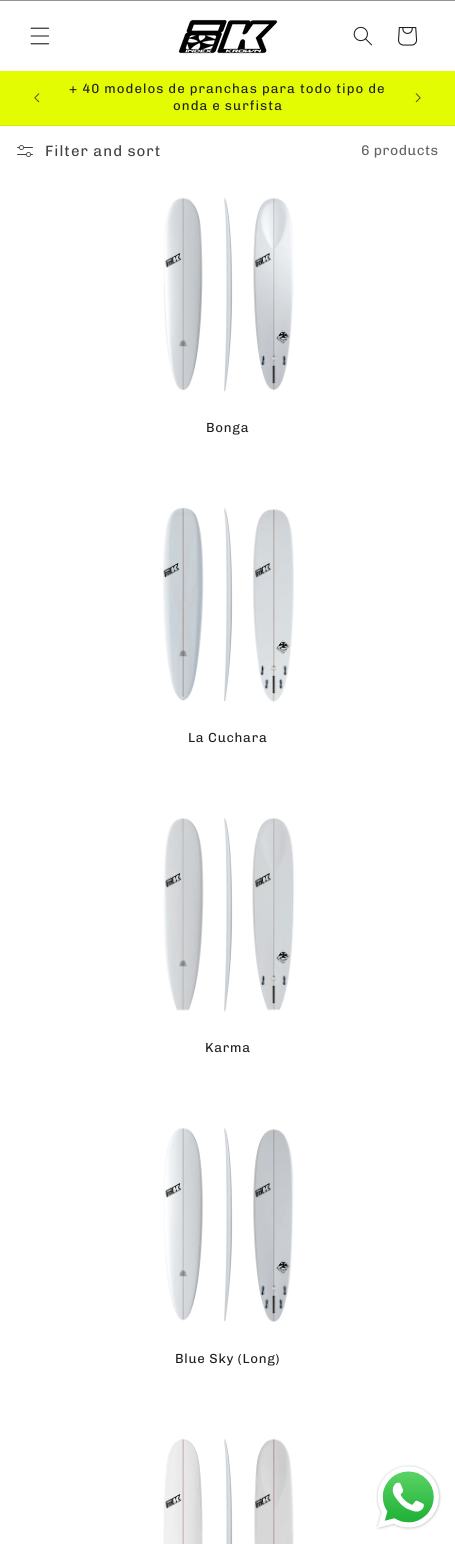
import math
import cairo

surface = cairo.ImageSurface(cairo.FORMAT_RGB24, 455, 1544)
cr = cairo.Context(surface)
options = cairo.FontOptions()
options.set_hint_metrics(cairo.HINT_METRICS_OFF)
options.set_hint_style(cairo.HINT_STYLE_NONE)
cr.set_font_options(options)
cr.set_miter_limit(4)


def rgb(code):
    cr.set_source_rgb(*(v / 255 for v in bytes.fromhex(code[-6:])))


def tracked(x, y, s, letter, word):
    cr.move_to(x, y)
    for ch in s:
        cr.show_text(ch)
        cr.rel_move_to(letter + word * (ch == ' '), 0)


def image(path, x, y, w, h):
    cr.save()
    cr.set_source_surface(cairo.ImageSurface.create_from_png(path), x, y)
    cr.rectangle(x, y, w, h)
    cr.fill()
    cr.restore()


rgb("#ffffff")
cr.paint()
rgb("#949494")
cr.rectangle(0, 0, 455, 1)
cr.fill()
image("img/1.png", 30, 27, 20, 18)
image("img/2.png", 178, 19, 100, 35)
image("img/3.png", 353, 26, 19, 20)
image("img/4.png", 398, 27, 20, 19)
rgb("#e3fc02")
cr.rectangle(0, 71, 455, 54)
cr.fill()
rgb("#d3ea04")
cr.rectangle(0, 125, 455, 1)
cr.fill()
image("img/5.png", 34, 93, 6, 10)
image("img/6.png", 415, 93, 6, 10)
image("img/7.png", 17, 145, 16, 12)
image("img/8.png", 163, 197, 131, 195)
image("img/9.png", 163, 507, 131, 195)
image("img/10.png", 163, 818, 132, 194)
image("img/11.png", 164, 1128, 130, 194)
image("img/12.png", 163, 1438, 131, 106)
image("img/13.png", 376, 1464, 66, 66)
cr.select_font_face("Chivo")
cr.set_font_size(13.2)
rgb("#1f1f21")
tracked(69, 93, "+ 40 modelos de pranchas para todo tipo de", 1, 0)
tracked(173, 110, "onda e surfista", 1, 0)
cr.set_font_size(15)
rgb("#414142")
tracked(45, 156, "Filter and sort", 1, 0)
cr.set_font_size(14)
rgb("#626264")
tracked(361, 155, "6 products", 0.5, 0)
cr.set_font_size(13.2)
rgb("#1f1f21")
for x, y, s in [
    (206, 432, "Bonga"),
    (188, 742, "La Cuchara"),
    (205, 1052, "Karma"),
    (175, 1363, "Blue Sky (Long)"),
]:
    tracked(x, y, s, 0.7, 0)
surface.write_to_png("page.png")
